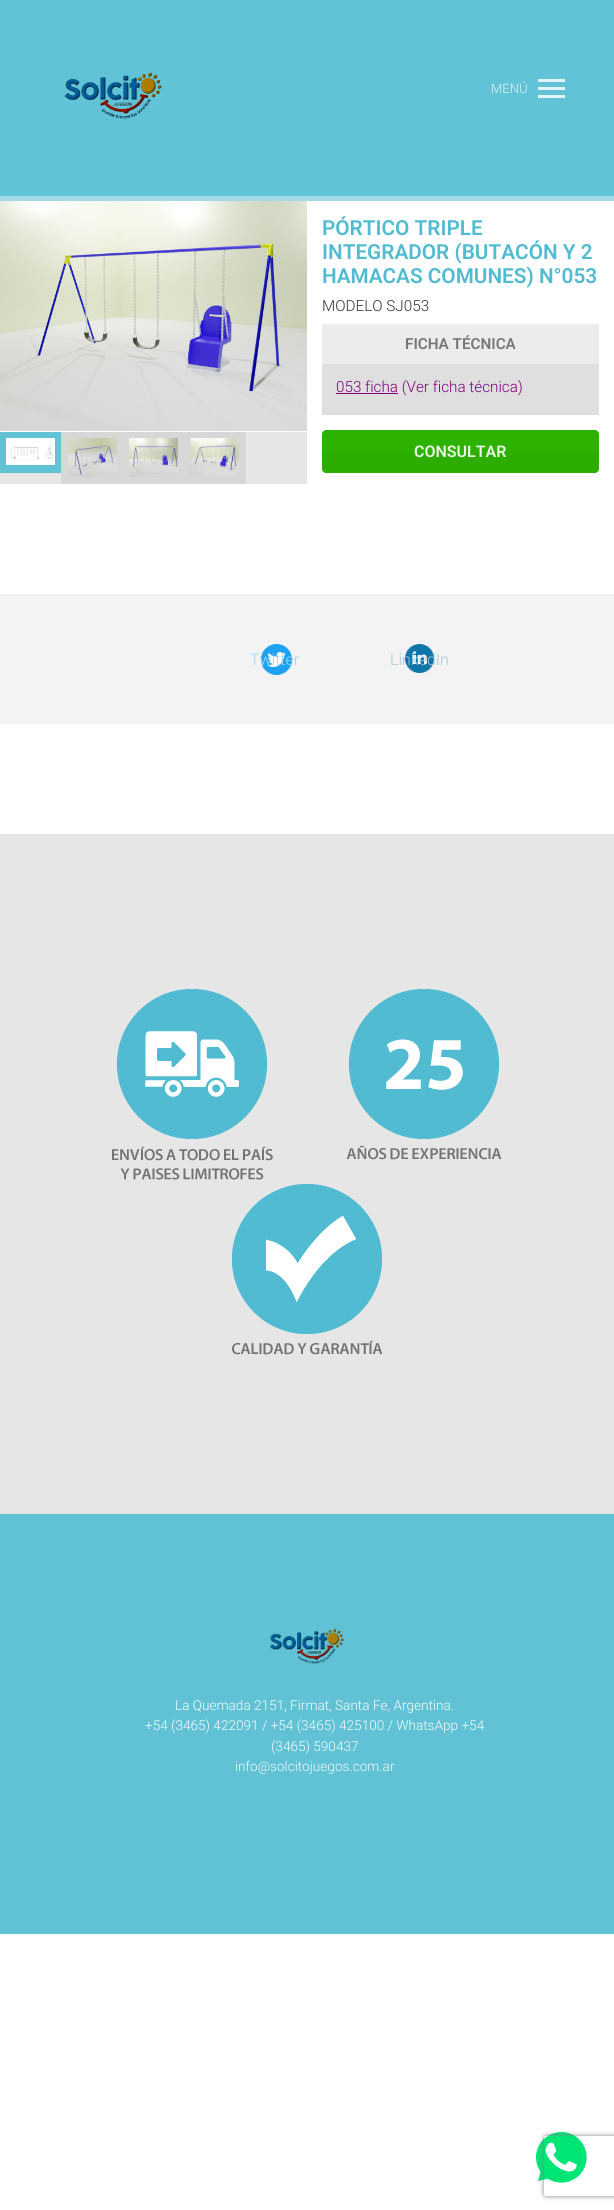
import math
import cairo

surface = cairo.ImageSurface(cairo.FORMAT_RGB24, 614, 2210)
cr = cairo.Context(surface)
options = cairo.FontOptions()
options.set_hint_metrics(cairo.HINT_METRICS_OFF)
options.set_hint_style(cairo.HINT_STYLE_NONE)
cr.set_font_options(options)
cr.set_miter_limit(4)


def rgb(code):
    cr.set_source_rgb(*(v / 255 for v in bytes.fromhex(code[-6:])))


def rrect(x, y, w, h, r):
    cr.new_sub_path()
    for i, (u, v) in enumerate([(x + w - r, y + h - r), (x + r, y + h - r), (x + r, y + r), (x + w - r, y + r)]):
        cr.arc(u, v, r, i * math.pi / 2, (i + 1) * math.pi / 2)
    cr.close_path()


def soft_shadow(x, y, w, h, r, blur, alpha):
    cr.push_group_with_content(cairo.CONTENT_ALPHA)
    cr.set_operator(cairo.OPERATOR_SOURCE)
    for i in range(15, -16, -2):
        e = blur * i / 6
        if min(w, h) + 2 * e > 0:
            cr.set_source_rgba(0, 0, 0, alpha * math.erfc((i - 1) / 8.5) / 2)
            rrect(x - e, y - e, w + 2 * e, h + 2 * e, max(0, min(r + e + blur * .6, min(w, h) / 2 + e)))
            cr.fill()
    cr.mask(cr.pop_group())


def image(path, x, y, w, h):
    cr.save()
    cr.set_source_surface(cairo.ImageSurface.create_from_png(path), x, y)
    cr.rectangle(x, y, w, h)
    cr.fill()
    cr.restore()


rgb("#ffffff")
cr.paint()
rgb("#62c2d6")
cr.rectangle(0, 0, 614, 196)
cr.fill()
rgb("#a1dae6")
cr.rectangle(0, 196, 614, 5)
cr.fill()
image("img/1.png", 64, 72, 98, 47)
for x, y, w, h, color in [
    (538, 79, 27, 3, "#e0f3f7"),
    (538, 87, 27, 3, "#e0f3f7"),
    (538, 95, 27, 3, "#e0f3f7"),
]:
    rgb(color)
    cr.rectangle(x, y, w, h)
    cr.fill()
image("img/2.png", 0, 201, 307, 230)
rgb("#e6e6e6")
cr.rectangle(0, 432, 307, 52)
cr.fill()
rgb("#61c2d6")
cr.rectangle(0, 432, 61, 41)
cr.fill()
image("img/3.png", 6, 438, 49, 27)
rgb("#d7d7d7")
cr.rectangle(61, 432, 185, 52)
cr.fill()
image("img/4.png", 68, 438, 49, 39)
image("img/5.png", 129, 438, 49, 39)
image("img/6.png", 190, 438, 49, 38)
for x, y, w, h, color in [
    (322, 364, 277, 51, "#dfdfdf"),
    (322, 324, 277, 40, "#ececec"),
    (336, 393, 62, 1, "#800080"),
]:
    rgb(color)
    cr.rectangle(x, y, w, h)
    cr.fill()
rgb("#2db200")
cr.new_path()
cr.move_to(326, 430)
cr.line_to(595, 430)
cr.curve_to(597, 430, 599, 432, 599, 434)
cr.line_to(599, 452)
cr.line_to(322, 452)
cr.line_to(322, 434)
cr.curve_to(322, 432, 324, 430, 326, 430)
cr.close_path()
cr.fill()
rgb("#2cad00")
cr.new_path()
cr.move_to(322, 452)
cr.line_to(599, 452)
cr.line_to(599, 469)
cr.curve_to(599, 471, 597, 473, 595, 473)
cr.line_to(326, 473)
cr.curve_to(324, 473, 322, 471, 322, 469)
cr.close_path()
cr.fill()
rgb("#f3f3f3")
cr.rectangle(0, 594, 614, 130)
cr.fill()
image("img/7.png", 261, 644, 31, 31)
image("img/8.png", 405, 644, 29, 29)
rgb("#e6e6e6")
cr.rectangle(0, 834, 614, 680)
cr.fill()
image("img/9.png", 112, 989, 161, 191)
image("img/10.png", 346, 989, 156, 171)
image("img/11.png", 232, 1184, 151, 171)
rgb("#61c2d6")
cr.rectangle(0, 1514, 614, 420)
cr.fill()
image("img/12.png", 269, 1628, 75, 36)
image("img/13.png", 536, 2132, 51, 51)
cr.save()
cr.set_fill_rule(cairo.FILL_RULE_EVEN_ODD)
cr.new_path()
cr.move_to(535, 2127)
cr.line_to(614, 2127)
cr.line_to(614, 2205)
cr.line_to(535, 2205)
cr.close_path()
cr.move_to(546, 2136)
cr.line_to(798, 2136)
cr.curve_to(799, 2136, 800, 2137, 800, 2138)
cr.line_to(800, 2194)
cr.curve_to(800, 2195, 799, 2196, 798, 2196)
cr.line_to(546, 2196)
cr.curve_to(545, 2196, 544, 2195, 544, 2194)
cr.line_to(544, 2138)
cr.curve_to(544, 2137, 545, 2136, 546, 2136)
cr.close_path()
cr.clip()
rgb("#808080")
soft_shadow(544, 2136, 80, 60, 2, 2.5, 1)
cr.restore()
cr.select_font_face("Roboto Light")
cr.set_font_size(13)
rgb("#e0f3f7")
cr.move_to(491, 93)
cr.show_text("MENÚ")
cr.select_font_face("Roboto SemiBold")
cr.set_font_size(20.75)
rgb("#50bbd1")
for x, y, s in [
    (322, 235, "PÓRTICO TRIPLE"),
    (322, 259, "INTEGRADOR (BUTACÓN Y 2"),
    (322, 283, "HAMACAS COMUNES) N°053"),
]:
    cr.move_to(x, y)
    cr.show_text(s)
cr.select_font_face("Roboto Light")
cr.set_font_size(15.25)
rgb("#333333")
cr.move_to(322, 311)
cr.show_text("MODELO SJ053")
cr.select_font_face("Roboto SemiBold")
rgb("#767676")
cr.move_to(405, 349)
cr.show_text("FICHA TÉCNICA")
cr.select_font_face("Roboto Light")
rgb("#800080")
cr.move_to(336, 392)
cr.show_text("053 ficha (Ver ficha técnica)")
cr.select_font_face("Roboto SemiBold")
cr.set_font_size(16)
rgb("#eaf7e6")
cr.move_to(414, 457)
cr.show_text("CONSULTAR")
cr.select_font_face("Roboto Light")
rgb("#a1d5f6")
cr.move_to(250, 665)
cr.show_text("Twitter")
rgb("#a6cadb")
cr.move_to(390, 665)
cr.show_text("LinkedIn")
cr.set_font_size(13.6)
rgb("#f7fcfd")
for x, y, s in [
    (175, 1710, "La Quemada 2151, Firmat, Santa Fe, Argentina."),
    (145, 1730, "+54 (3465) 422091 / +54 (3465) 425100 / WhatsApp +54"),
    (271, 1751, "(3465) 590437"),
]:
    cr.move_to(x, y)
    cr.show_text(s)
rgb("#eff9fb")
cr.move_to(235, 1771)
cr.show_text("info@solcitojuegos.com.ar")
surface.write_to_png("page.png")
